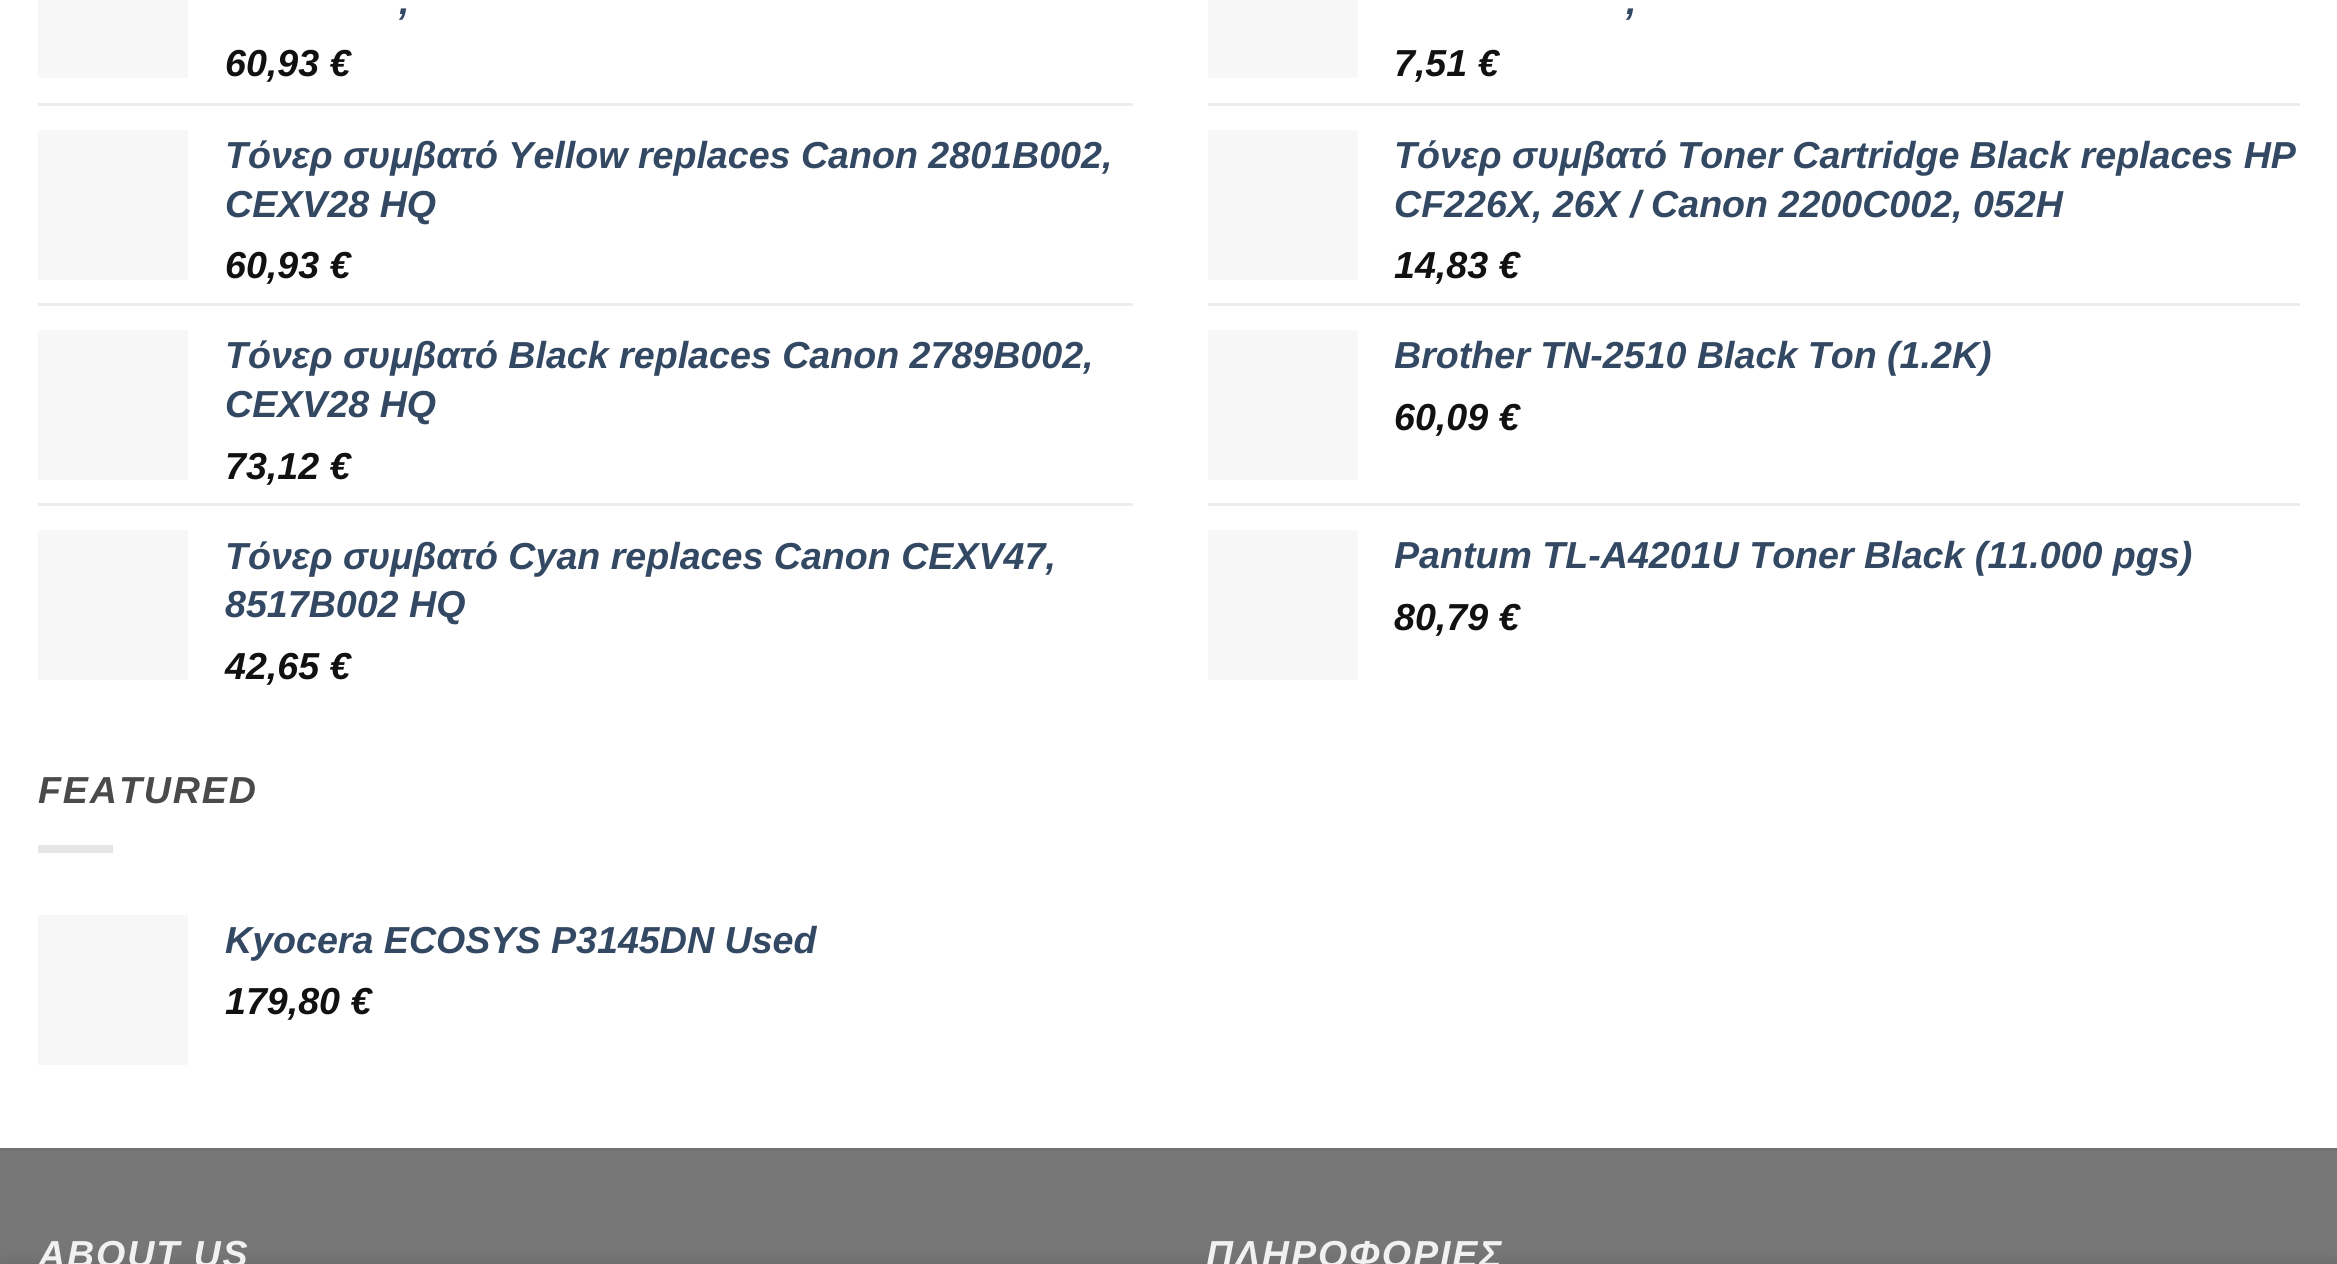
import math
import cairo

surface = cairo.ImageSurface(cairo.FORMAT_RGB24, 2337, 1264)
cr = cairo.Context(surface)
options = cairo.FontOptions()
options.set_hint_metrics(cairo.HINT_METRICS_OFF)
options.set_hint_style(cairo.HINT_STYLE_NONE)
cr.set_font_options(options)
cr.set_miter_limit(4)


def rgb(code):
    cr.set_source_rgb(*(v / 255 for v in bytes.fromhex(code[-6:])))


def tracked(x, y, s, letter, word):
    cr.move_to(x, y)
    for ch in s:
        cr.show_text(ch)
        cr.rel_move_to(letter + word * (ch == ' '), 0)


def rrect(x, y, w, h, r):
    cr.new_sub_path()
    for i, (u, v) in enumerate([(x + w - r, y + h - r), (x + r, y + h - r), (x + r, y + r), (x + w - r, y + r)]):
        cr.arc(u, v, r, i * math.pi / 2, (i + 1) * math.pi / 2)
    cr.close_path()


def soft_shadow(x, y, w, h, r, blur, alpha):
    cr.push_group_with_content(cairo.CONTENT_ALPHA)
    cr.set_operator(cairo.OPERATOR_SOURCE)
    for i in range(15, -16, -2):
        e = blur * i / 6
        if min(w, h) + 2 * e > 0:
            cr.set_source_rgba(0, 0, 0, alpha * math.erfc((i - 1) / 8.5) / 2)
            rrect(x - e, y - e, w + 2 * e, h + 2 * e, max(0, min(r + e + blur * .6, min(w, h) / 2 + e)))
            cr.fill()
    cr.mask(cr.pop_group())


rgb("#ffffff")
cr.paint()
for x, y, w, h, color in [
    (38, 0, 150, 78, "#f7f7f7"),
    (38, 103, 1095, 3, "#ececec"),
    (38, 130, 150, 150, "#f7f7f7"),
    (38, 303, 1095, 3, "#ececec"),
    (38, 330, 150, 150, "#f7f7f7"),
    (38, 503, 1095, 3, "#ececec"),
    (38, 530, 150, 150, "#f7f7f7"),
    (1208, 0, 150, 78, "#f7f7f7"),
    (1208, 103, 1092, 3, "#ececec"),
    (1208, 130, 150, 150, "#f7f7f7"),
    (1208, 303, 1092, 3, "#ececec"),
    (1208, 330, 150, 150, "#f7f7f7"),
    (1208, 503, 1092, 3, "#ececec"),
    (1208, 530, 150, 150, "#f7f7f7"),
    (38, 845, 75, 8, "#e6e6e6"),
    (38, 915, 150, 150, "#f7f7f7"),
    (0, 1151, 2337, 113, "#777777"),
    (0, 1148, 2337, 3, "#717171"),
]:
    rgb(color)
    cr.rectangle(x, y, w, h)
    cr.fill()
rgb("#000000")
soft_shadow(0, 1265, 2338, 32, 0, 11, 0.14)
cr.select_font_face("Liberation Sans", cairo.FONT_SLANT_ITALIC, cairo.FONT_WEIGHT_BOLD)
cr.set_font_size(37.6)
rgb("#334862")
cr.move_to(399, 14)
cr.show_text(",")
rgb("#111111")
cr.move_to(225, 76)
cr.show_text("60,93 €")
rgb("#334862")
cr.move_to(225, 168)
cr.show_text("Τόνερ συμβατό Yellow replaces Canon 2801B002,")
cr.move_to(225, 217)
cr.show_text("CEXV28 HQ")
rgb("#111111")
cr.move_to(225, 278)
cr.show_text("60,93 €")
rgb("#334862")
cr.move_to(225, 368)
cr.show_text("Τόνερ συμβατό Black replaces Canon 2789B002,")
cr.move_to(225, 417)
cr.show_text("CEXV28 HQ")
rgb("#111111")
cr.move_to(225, 479)
cr.show_text("73,12 €")
rgb("#334862")
cr.move_to(225, 569)
cr.show_text("Τόνερ συμβατό Cyan replaces Canon CEXV47,")
cr.move_to(225, 617)
cr.show_text("8517B002 HQ")
rgb("#111111")
cr.move_to(225, 679)
cr.show_text("42,65 €")
rgb("#334862")
cr.move_to(1626, 14)
cr.show_text(",")
rgb("#111111")
cr.move_to(1394, 76)
cr.show_text("7,51 €")
rgb("#334862")
cr.move_to(1394, 168)
cr.show_text("Τόνερ συμβατό Toner Cartridge Black replaces HP")
cr.move_to(1394, 217)
cr.show_text("CF226X, 26X / Canon 2200C002, 052H")
rgb("#111111")
cr.move_to(1394, 278)
cr.show_text("14,83 €")
cr.save()
cr.rectangle(1395, 330, 905, 50)
cr.clip()
rgb("#334862")
cr.move_to(1394, 368)
cr.show_text("Brother TN-2510 Black Ton (1.2K)")
cr.restore()
cr.move_to(1394, 430)
cr.show_text("60,09 €")
cr.save()
cr.rectangle(1395, 530, 905, 50)
cr.clip()
rgb("#334862")
cr.move_to(1394, 568)
cr.show_text("Pantum TL-A4201U Toner Black (11.000 pgs)")
cr.restore()
cr.move_to(1394, 630)
cr.show_text("80,79 €")
rgb("#4a4a4a")
tracked(38, 803, "FEATURED", 1.9, 0)
rgb("#334862")
cr.move_to(225, 953)
cr.show_text("Kyocera ECOSYS P3145DN Used")
rgb("#111111")
cr.move_to(225, 1014)
cr.show_text("179,80 €")
rgb("#f1f1f1")
tracked(38, 1267, "ABOUT US", 1.9, 0)
tracked(1206, 1267, "ΠΛΗΡΟΦΟΡΙΕΣ", 1.9, 0)
surface.write_to_png("page.png")
